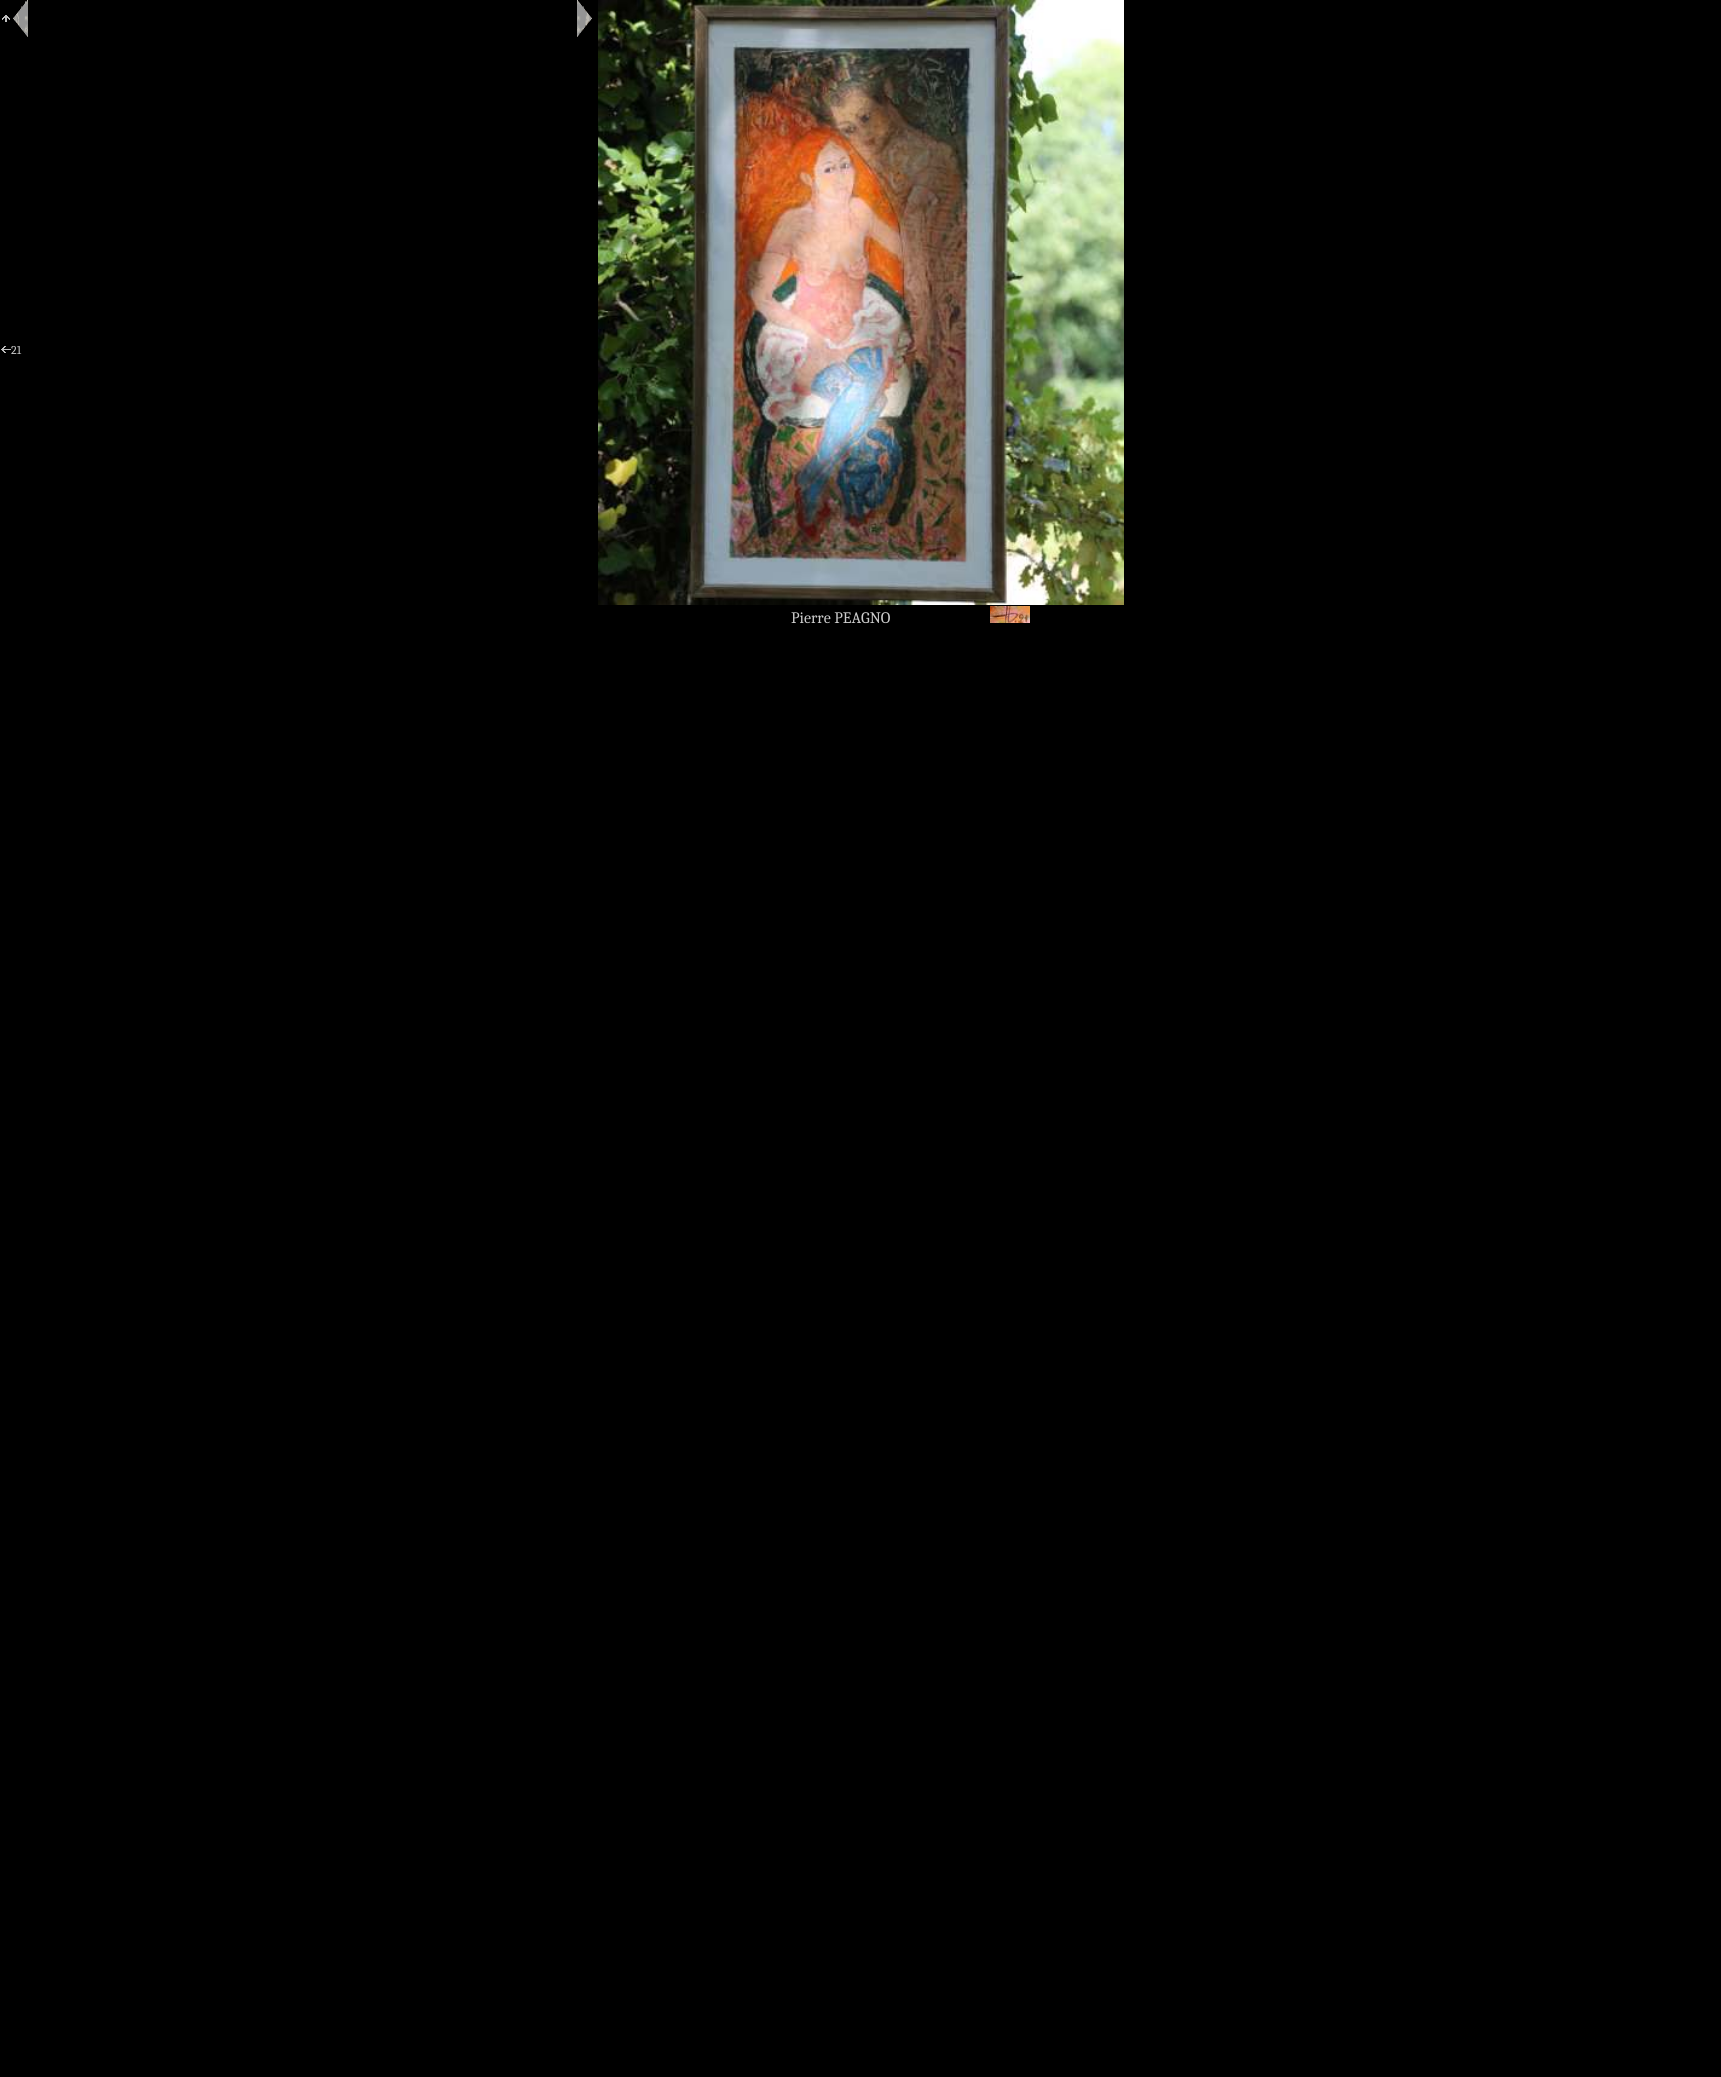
import math
import cairo

surface = cairo.ImageSurface(cairo.FORMAT_RGB24, 1721, 2077)
cr = cairo.Context(surface)
options = cairo.FontOptions()
options.set_hint_metrics(cairo.HINT_METRICS_OFF)
options.set_hint_style(cairo.HINT_STYLE_NONE)
cr.set_font_options(options)
cr.set_miter_limit(4)


def rgb(code):
    cr.set_source_rgb(*(v / 255 for v in bytes.fromhex(code[-6:])))


def image(path, x, y, w, h):
    cr.save()
    cr.set_source_surface(cairo.ImageSurface.create_from_png(path), x, y)
    cr.rectangle(x, y, w, h)
    cr.fill()
    cr.restore()


rgb("#000000")
cr.paint()
image("img/1.png", 2, 15, 8, 7)
image("img/2.png", 1, 346, 10, 7)
image("img/3.png", 13, 0, 15, 37)
image("img/4.png", 577, 0, 15, 37)
image("img/5.png", 598, 0, 526, 605)
image("img/6.png", 990, 606, 40, 17)
cr.select_font_face("Caladea")
cr.set_font_size(12)
rgb("#cccccc")
cr.move_to(11, 354)
cr.show_text("21")
cr.set_font_size(16)
cr.move_to(791, 623)
cr.show_text("Pierre PEAGNO")
surface.write_to_png("page.png")
